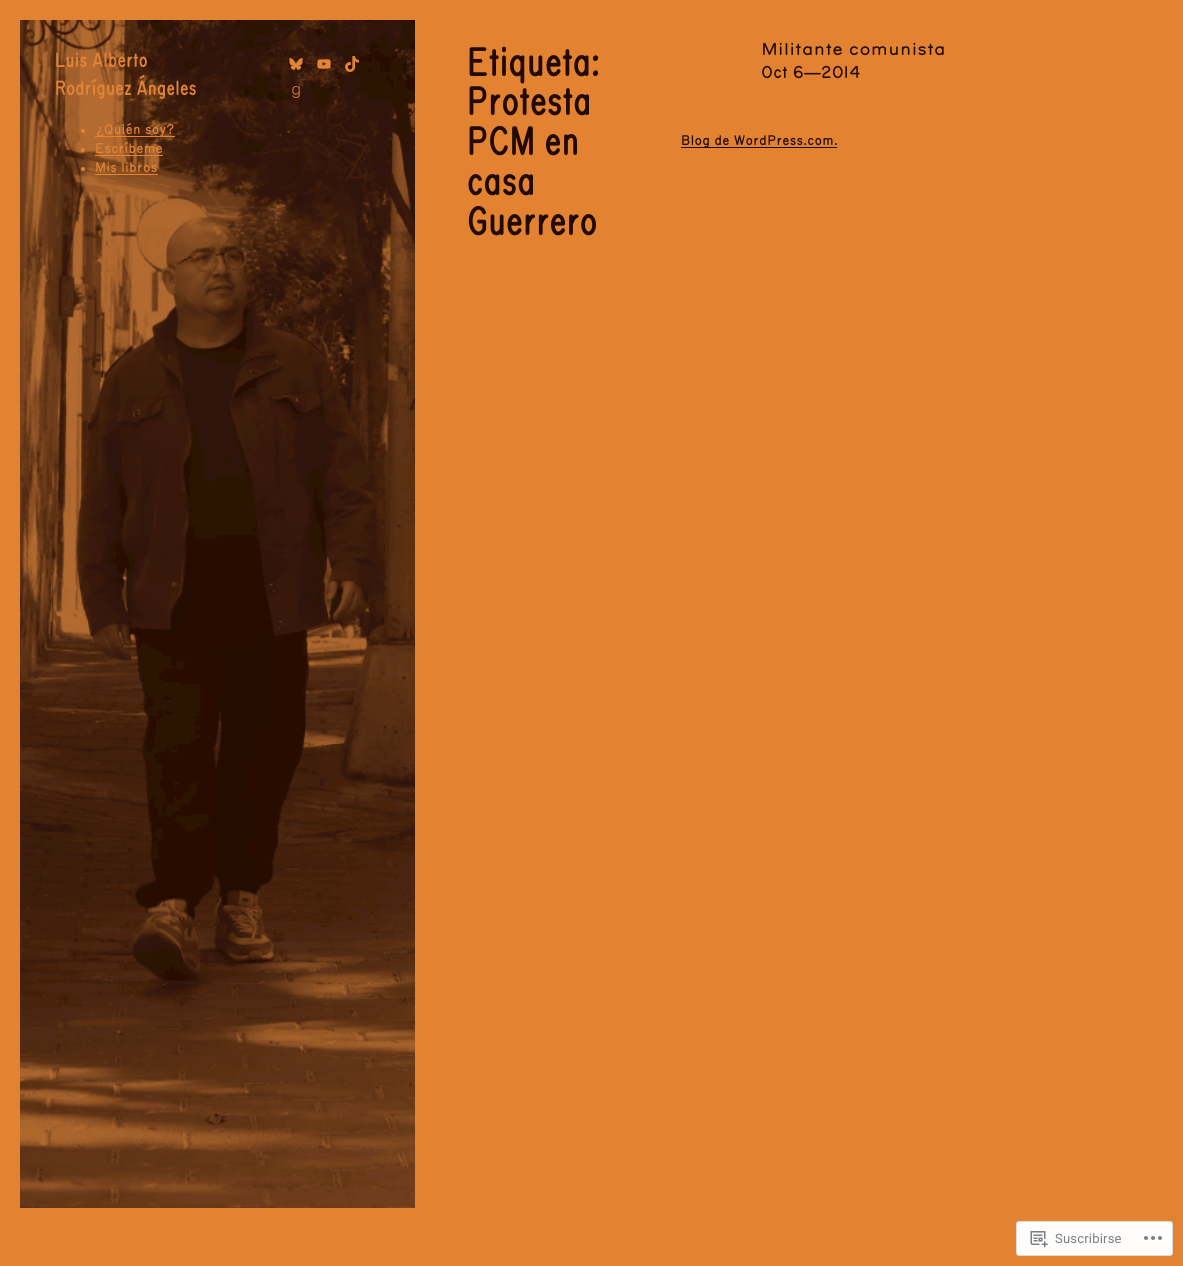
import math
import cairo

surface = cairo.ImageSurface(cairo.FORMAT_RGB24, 1183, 1266)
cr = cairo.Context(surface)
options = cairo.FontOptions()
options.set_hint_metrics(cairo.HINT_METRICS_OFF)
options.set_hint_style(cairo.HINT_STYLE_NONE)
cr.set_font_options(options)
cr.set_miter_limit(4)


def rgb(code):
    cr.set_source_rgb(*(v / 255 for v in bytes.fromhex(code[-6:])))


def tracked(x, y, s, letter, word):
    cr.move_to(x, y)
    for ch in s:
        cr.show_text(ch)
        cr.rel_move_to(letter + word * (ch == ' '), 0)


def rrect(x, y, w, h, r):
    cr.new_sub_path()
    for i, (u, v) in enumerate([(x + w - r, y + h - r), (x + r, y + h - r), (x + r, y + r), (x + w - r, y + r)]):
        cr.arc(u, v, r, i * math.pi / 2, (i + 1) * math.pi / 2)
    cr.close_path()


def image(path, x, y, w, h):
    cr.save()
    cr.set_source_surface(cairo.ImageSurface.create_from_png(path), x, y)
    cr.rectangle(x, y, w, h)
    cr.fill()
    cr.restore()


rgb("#e38230")
cr.paint()
image("img/1.png", 20, 20, 395, 1188)
image("img/2.png", 289, 58, 14, 12)
image("img/3.png", 317, 59, 14, 10)
image("img/4.png", 345, 56, 14, 16)
image("img/5.png", 292, 86, 8, 12)
rgb("#e38435")
cr.arc(83, 131, 2, 0, 2 * math.pi)
cr.fill()
cr.rectangle(95, 136, 80, 1)
cr.fill()
cr.arc(83, 150, 2, 0, 2 * math.pi)
cr.fill()
cr.rectangle(95, 155, 68, 1)
cr.fill()
cr.arc(83, 169, 2, 0, 2 * math.pi)
cr.fill()
cr.rectangle(95, 174, 63, 1)
cr.fill()
rgb("#210a02")
cr.rectangle(681, 147, 156, 1)
cr.fill()
rgb("#fefdfb")
rrect(1016.5, 1221.5, 156, 34, 2.5)
cr.fill_preserve()
rgb("#dcdadb")
cr.set_line_width(1)
cr.stroke()
image("img/6.png", 1030, 1231, 18, 17)
image("img/7.png", 1144, 1236, 18, 4)
cr.select_font_face("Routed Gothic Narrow")
cr.set_font_size(20)
rgb("#e38435")
tracked(55, 67, "Luis Alberto", 0.25, 0)
tracked(55, 95, "Rodríguez Ángeles", 0.25, 0)
cr.select_font_face("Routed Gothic")
cr.set_font_size(13.6)
for x, y, s in [
    (95, 134, "¿Quién soy?"),
    (95, 153, "Escríbeme"),
    (95, 172, "Mis libros"),
]:
    tracked(x, y, s, 0.2, 0)
cr.select_font_face("Routed Gothic Narrow")
cr.set_font_size(40)
rgb("#210a02")
for x, y, s in [
    (467, 76, "Etiqueta:"),
    (467, 115, "Protesta"),
    (467, 155, "PCM en"),
    (467, 195, "casa"),
    (467, 235, "Guerrero"),
]:
    cr.move_to(x, y)
    cr.show_text(s)
cr.select_font_face("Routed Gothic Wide")
cr.set_font_size(16.75)
tracked(761, 55, "Militante comunista", -0.2, 0)
cr.select_font_face("Routed Gothic")
tracked(761, 78, "Oct 6—2014", 0.2, 0)
cr.set_font_size(13.6)
tracked(681, 145, "Blog de WordPress.com.", 0.2, 0)
cr.select_font_face("Roboto")
cr.set_font_size(13)
rgb("#7a7c80")
tracked(1055, 1243, "Suscribirse", 0.2, 0)
surface.write_to_png("page.png")
